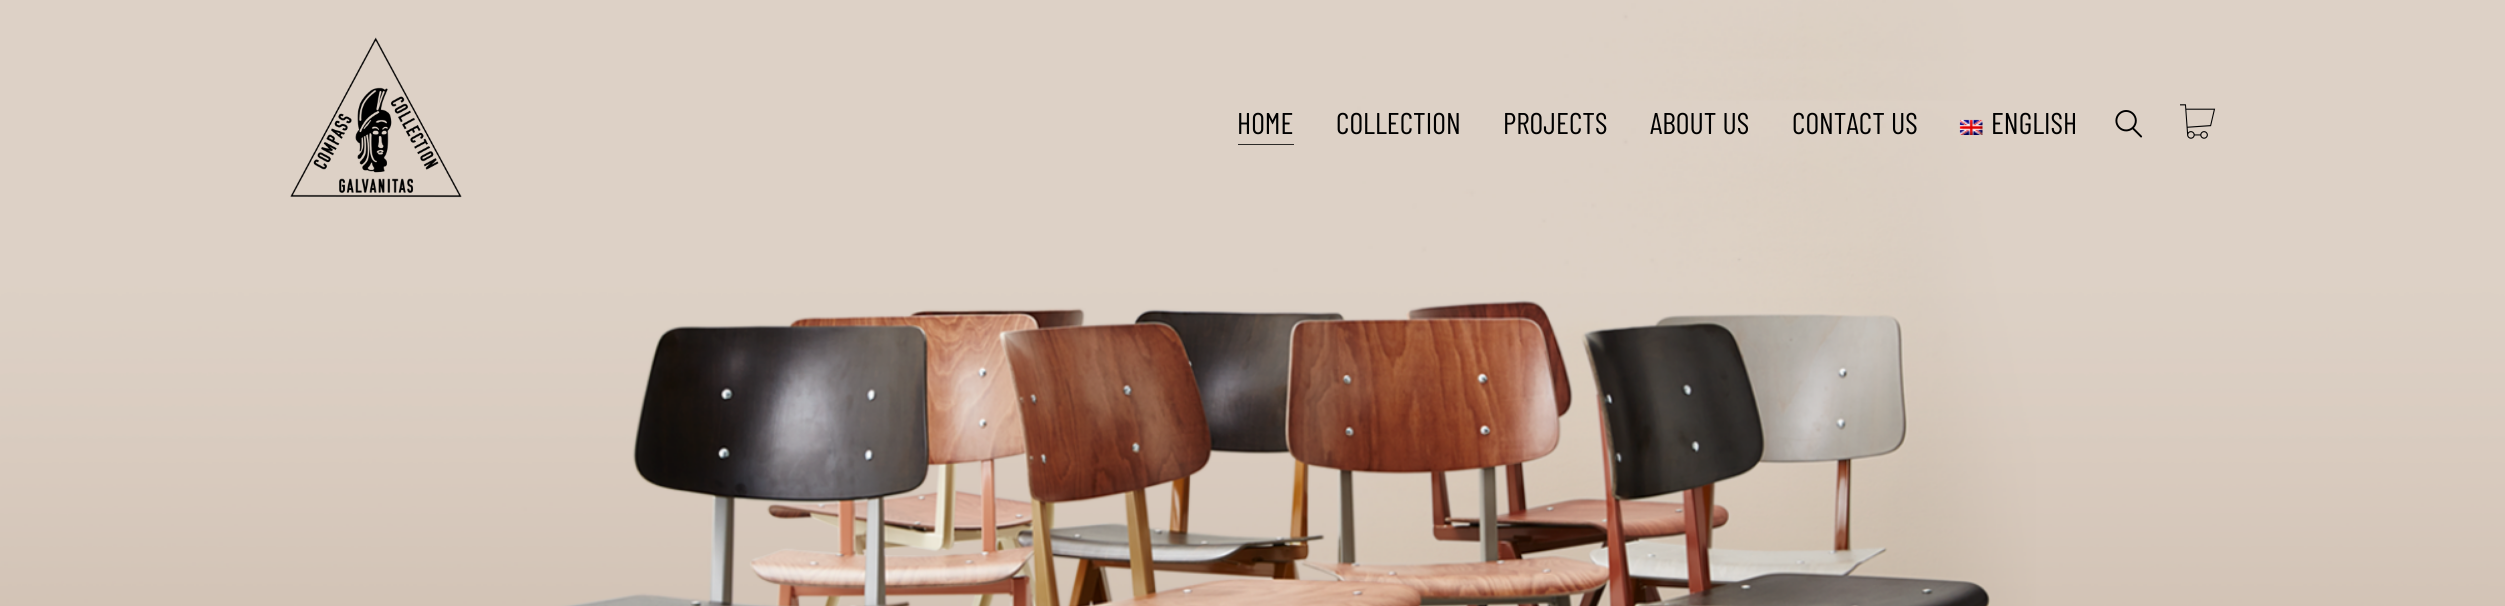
import math
import cairo

surface = cairo.ImageSurface(cairo.FORMAT_RGB24, 2505, 606)
cr = cairo.Context(surface)
options = cairo.FontOptions()
options.set_hint_metrics(cairo.HINT_METRICS_OFF)
options.set_hint_style(cairo.HINT_STYLE_NONE)
cr.set_font_options(options)
cr.set_miter_limit(4)


def rgb(code):
    cr.set_source_rgb(*(v / 255 for v in bytes.fromhex(code[-6:])))


def image(path, x, y, w, h):
    cr.save()
    cr.set_source_surface(cairo.ImageSurface.create_from_png(path), x, y)
    cr.rectangle(x, y, w, h)
    cr.fill()
    cr.restore()


rgb("#ffffff")
cr.paint()
image("img/1.png", 0, 0, 2505, 606)
image("img/2.png", 290, 37, 172, 161)
rgb("#2c2a28")
cr.rectangle(1238, 144, 56, 1)
cr.fill()
image("img/3.png", 1959, 119, 24, 16)
image("img/4.png", 2115, 110, 28, 28)
image("img/5.png", 2180, 104, 36, 35)
cr.select_font_face("Barlow Condensed")
cr.set_font_size(30)
rgb("#000000")
for x, y, s in [
    (1237, 134, "HOME"),
    (1336, 134, "COLLECTION"),
    (1503, 134, "PROJECTS"),
    (1650, 134, "ABOUT US"),
    (1792, 134, "CONTACT US"),
    (1991, 134, "ENGLISH"),
]:
    cr.move_to(x, y)
    cr.show_text(s)
surface.write_to_png("page.png")
